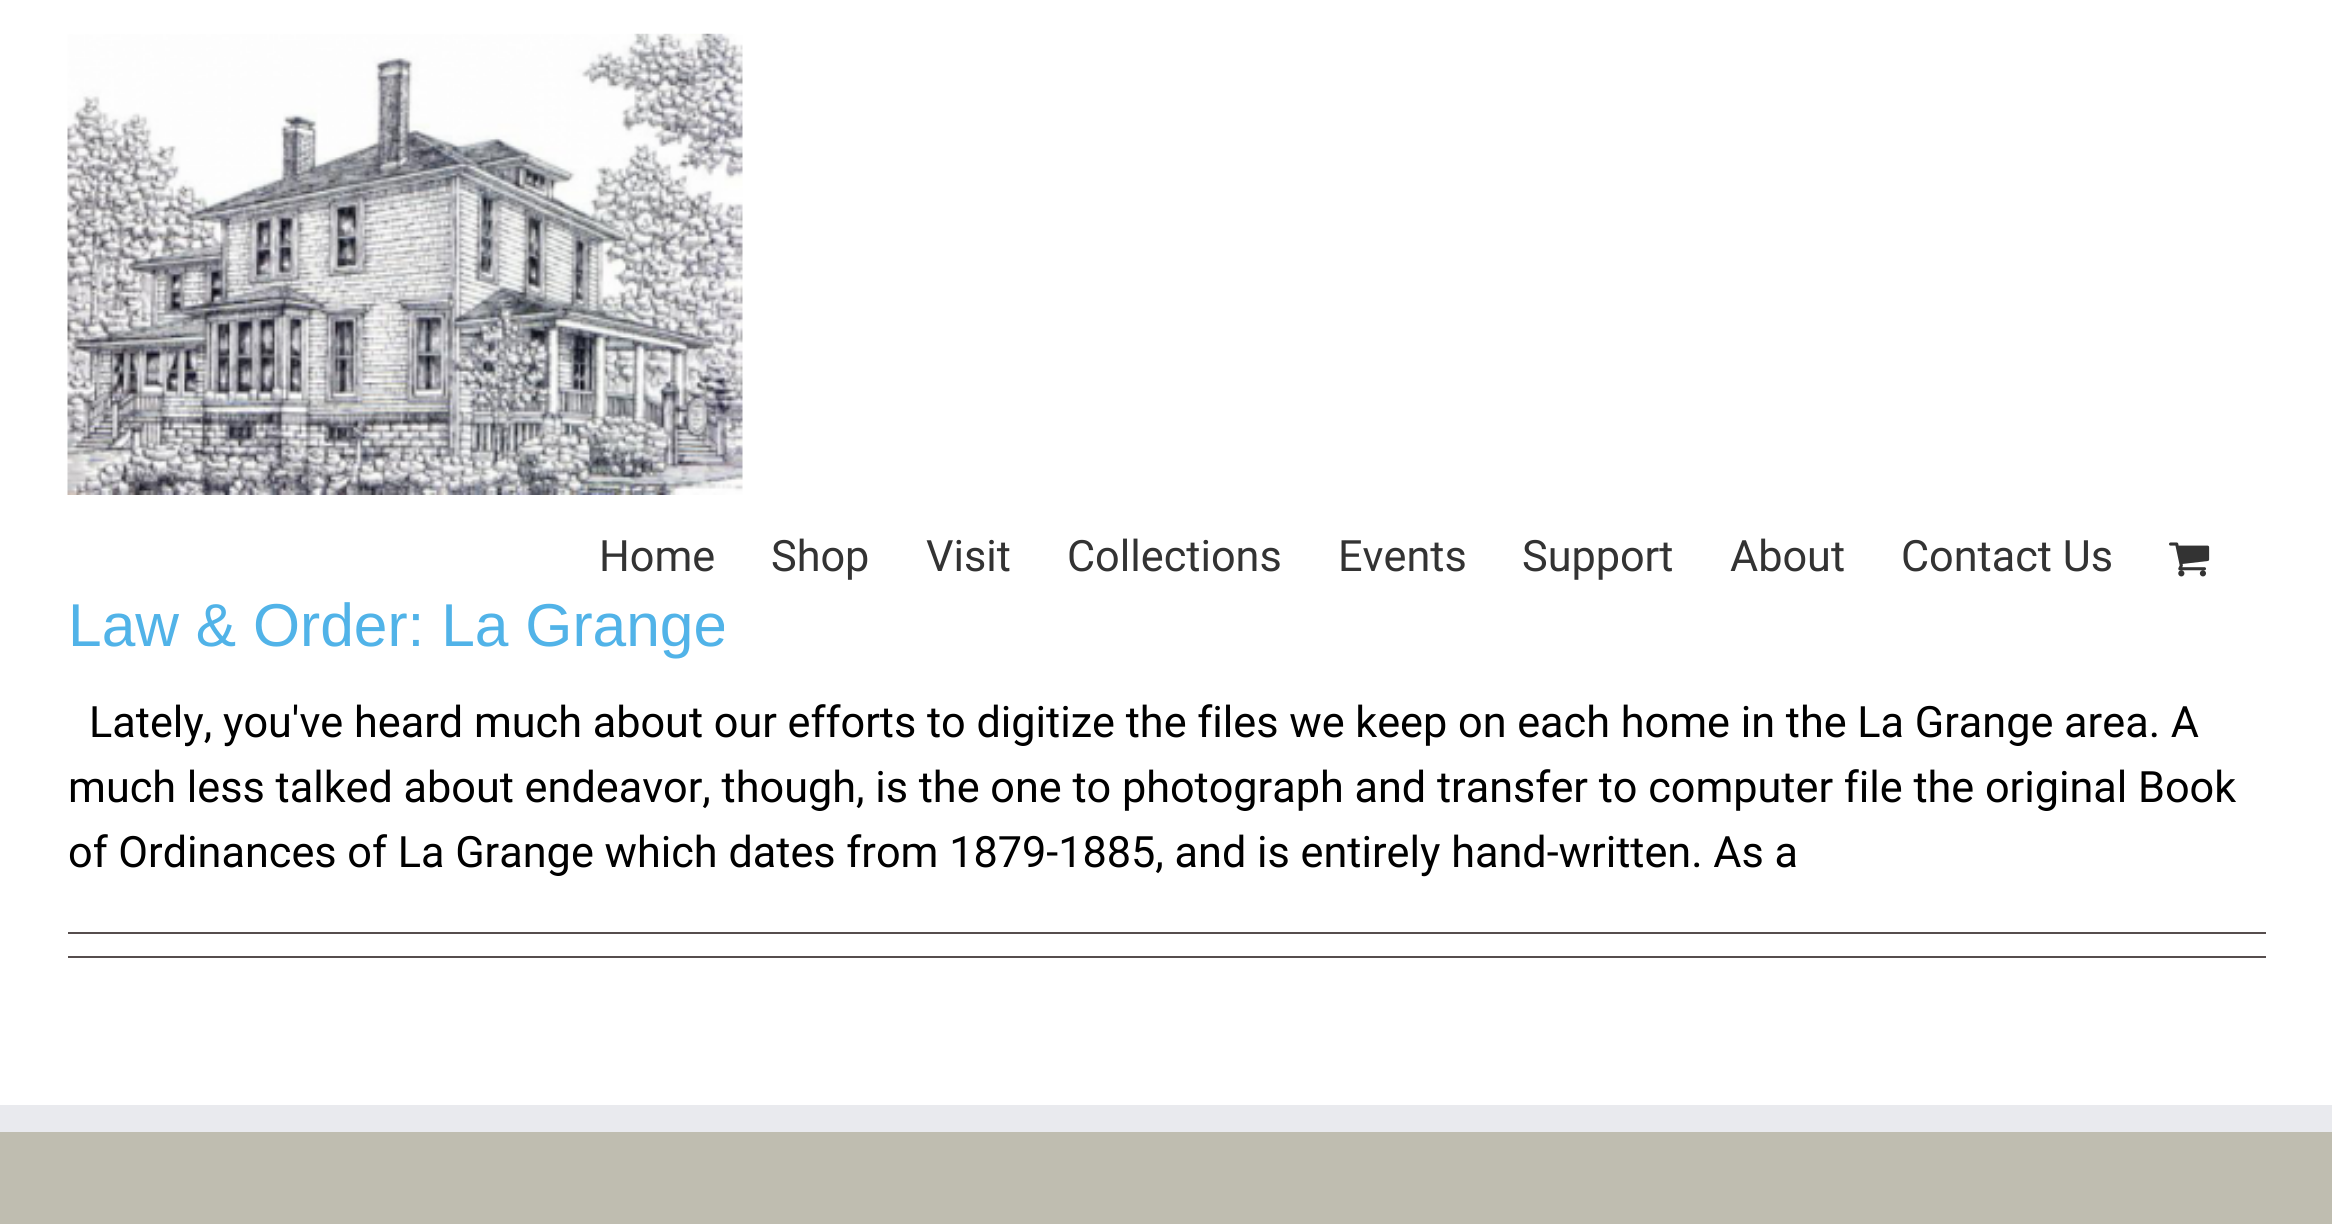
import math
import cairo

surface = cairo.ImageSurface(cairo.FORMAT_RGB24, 2332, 1224)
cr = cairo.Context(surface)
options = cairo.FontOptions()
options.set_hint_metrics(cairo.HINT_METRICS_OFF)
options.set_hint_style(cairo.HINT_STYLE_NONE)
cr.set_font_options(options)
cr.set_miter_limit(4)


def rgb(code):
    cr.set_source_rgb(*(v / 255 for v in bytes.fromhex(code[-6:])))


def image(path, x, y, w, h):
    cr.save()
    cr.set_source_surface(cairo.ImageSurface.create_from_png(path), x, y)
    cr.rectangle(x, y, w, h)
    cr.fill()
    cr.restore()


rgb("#ffffff")
cr.paint()
image("img/1.png", 67, 33, 676, 462)
image("img/2.png", 2169, 542, 41, 35)
for x, y, w, h, color in [
    (68, 932, 2198, 2, "#564e4e"),
    (68, 956, 2198, 2, "#564e4e"),
    (0, 1132, 2332, 92, "#bfbdb0"),
    (0, 1105, 2332, 27, "#e9eaee"),
]:
    rgb(color)
    cr.rectangle(x, y, w, h)
    cr.fill()
cr.select_font_face("Roboto")
cr.set_font_size(43.2)
rgb("#333333")
for x, y, s in [
    (599, 571, "Home"),
    (771, 571, "Shop"),
    (926, 571, "Visit"),
    (1067, 571, "Collections"),
    (1338, 571, "Events"),
    (1522, 571, "Support"),
    (1730, 571, "About"),
    (1901, 571, "Contact Us"),
]:
    cr.move_to(x, y)
    cr.show_text(s)
cr.select_font_face("Liberation Sans")
cr.set_font_size(60.5)
rgb("#51b3e8")
cr.move_to(68, 646)
cr.show_text("Law & Order: La Grange")
cr.select_font_face("Roboto")
cr.set_font_size(43.2)
rgb("#000000")
for x, y, s in [
    (89, 737, "Lately, you've heard much about our efforts to digitize the files we keep on each home in the La Grange area. A"),
    (68, 802, "much less talked about endeavor, though, is the one to photograph and transfer to computer file the original Book"),
    (68, 867, "of Ordinances of La Grange which dates from 1879-1885, and is entirely hand-written. As a"),
]:
    cr.move_to(x, y)
    cr.show_text(s)
surface.write_to_png("page.png")
